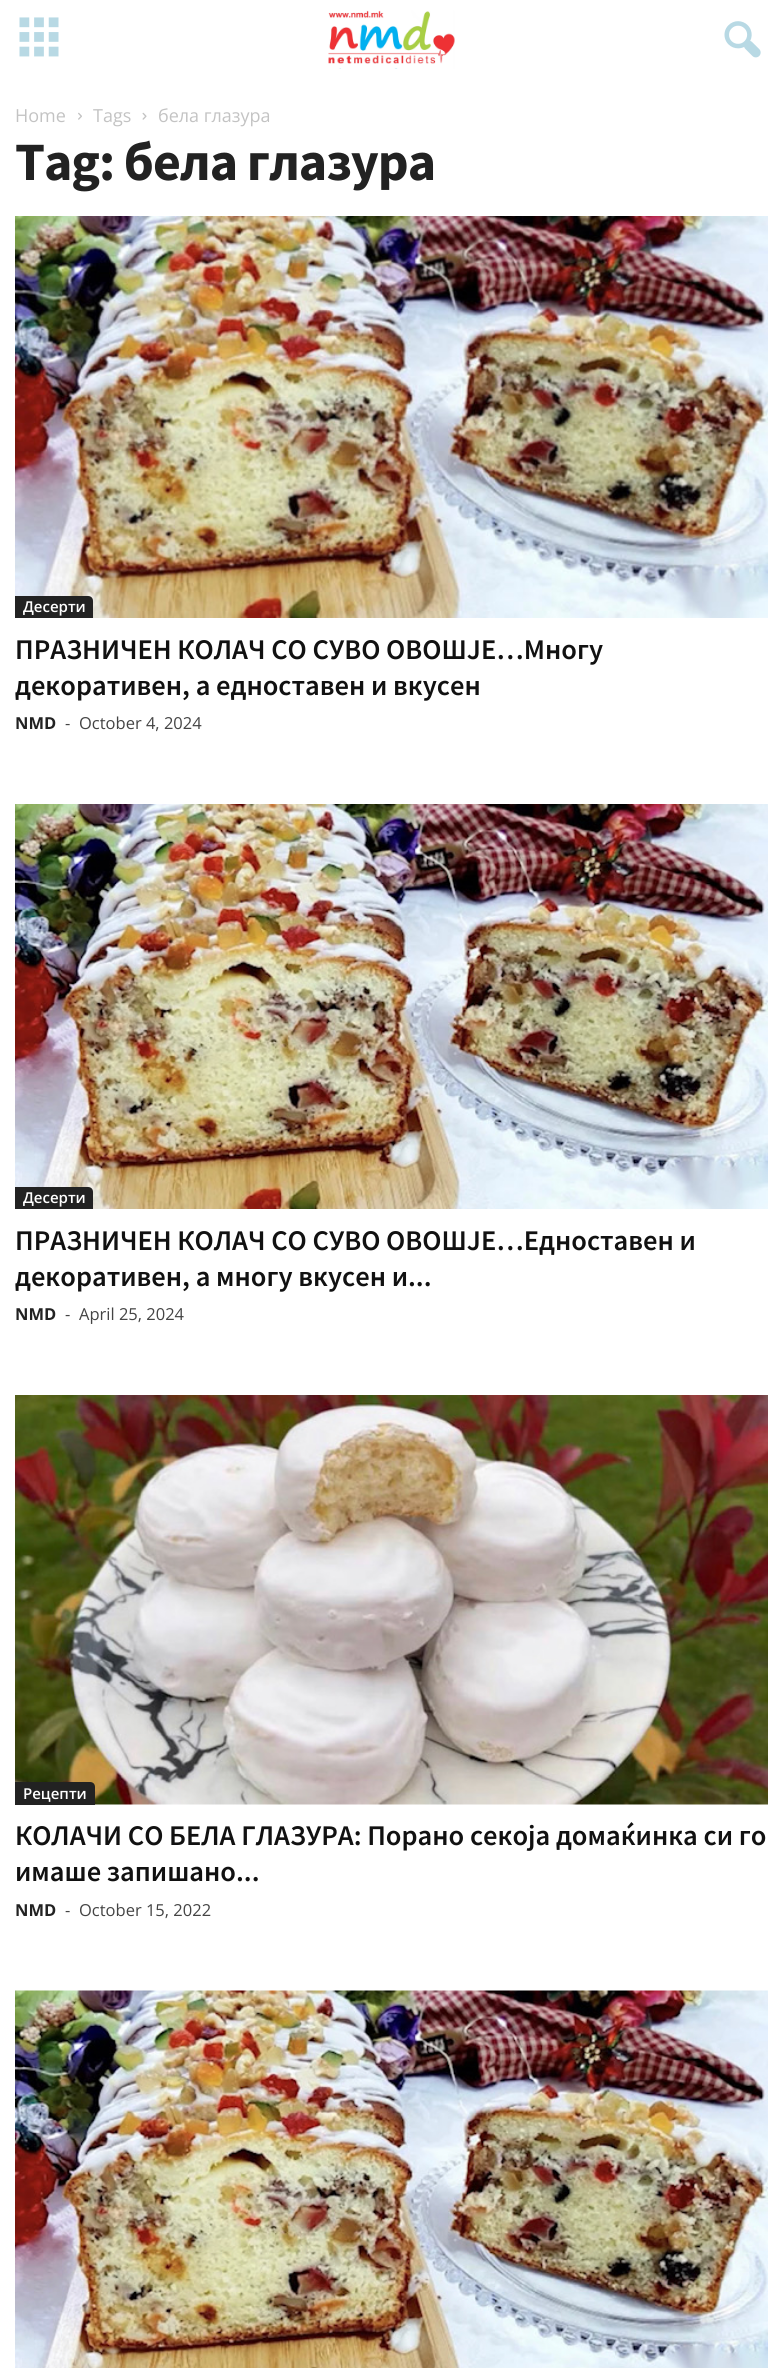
import math
import cairo

surface = cairo.ImageSurface(cairo.FORMAT_RGB24, 783, 2368)
cr = cairo.Context(surface)
options = cairo.FontOptions()
options.set_hint_metrics(cairo.HINT_METRICS_OFF)
options.set_hint_style(cairo.HINT_STYLE_NONE)
cr.set_font_options(options)
cr.set_miter_limit(4)


def rgb(code):
    cr.set_source_rgb(*(v / 255 for v in bytes.fromhex(code[-6:])))


def tracked(x, y, s, letter, word):
    cr.move_to(x, y)
    for ch in s:
        cr.show_text(ch)
        cr.rel_move_to(letter + word * (ch == ' '), 0)


def image(path, x, y, w, h):
    cr.save()
    cr.set_source_surface(cairo.ImageSurface.create_from_png(path), x, y)
    cr.rectangle(x, y, w, h)
    cr.fill()
    cr.restore()


rgb("#ffffff")
cr.paint()
image("img/1.png", 19, 17, 40, 40)
image("img/2.png", 328, 10, 127, 59)
image("img/3.png", 724, 21, 37, 37)
image("img/4.png", 78, 112, 4, 8)
image("img/5.png", 142, 112, 5, 8)
image("img/6.png", 15, 216, 753, 402)
rgb("#222222")
cr.new_path()
cr.move_to(15, 596)
cr.line_to(88, 596)
cr.curve_to(91, 596, 93, 598, 93, 601)
cr.line_to(93, 618)
cr.line_to(15, 618)
cr.close_path()
cr.fill()
image("img/7.png", 15, 804, 753, 405)
cr.new_path()
cr.move_to(15, 1187)
cr.line_to(88, 1187)
cr.curve_to(91, 1187, 93, 1189, 93, 1192)
cr.line_to(93, 1209)
cr.line_to(15, 1209)
cr.close_path()
cr.fill()
image("img/8.png", 15, 1395, 753, 410)
cr.new_path()
cr.move_to(15, 1782)
cr.line_to(90, 1782)
cr.curve_to(93, 1782, 95, 1784, 95, 1787)
cr.line_to(95, 1805)
cr.line_to(15, 1805)
cr.close_path()
cr.fill()
image("img/9.png", 15, 1990, 753, 378)
cr.select_font_face("Open Sans")
cr.set_font_size(18)
rgb("#c3c3c3")
for x, y, s in [
    (15, 122, "Home"),
    (93, 122, "Tags"),
    (158, 122, "бела глазура"),
]:
    cr.move_to(x, y)
    cr.show_text(s)
cr.select_font_face("Source Sans Pro", cairo.FONT_SLANT_NORMAL, cairo.FONT_WEIGHT_BOLD)
cr.set_font_size(54)
rgb("#222222")
tracked(15, 180, "Tag: бела глазура", -1.1, 0)
cr.select_font_face("Open Sans SemiBold")
cr.set_font_size(15)
rgb("#ffffff")
cr.move_to(23, 612)
cr.show_text("Десерти")
cr.select_font_face("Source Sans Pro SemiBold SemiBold")
cr.set_font_size(28.5)
rgb("#111111")
cr.move_to(15, 659)
cr.show_text("ПРАЗНИЧЕН КОЛАЧ СО СУВО ОВОШЈЕ…Многу")
cr.move_to(15, 695)
cr.show_text("декоративен, а едноставен и вкусен")
cr.select_font_face("Open Sans", cairo.FONT_SLANT_NORMAL, cairo.FONT_WEIGHT_BOLD)
cr.set_font_size(16.5)
rgb("#222222")
cr.move_to(15, 729)
cr.show_text("NMD")
cr.select_font_face("Open Sans")
rgb("#444444")
cr.move_to(65, 729)
cr.show_text("-")
cr.move_to(79, 729)
cr.show_text("October 4, 2024")
cr.select_font_face("Open Sans SemiBold")
cr.set_font_size(15)
rgb("#ffffff")
cr.move_to(23, 1203)
cr.show_text("Десерти")
cr.select_font_face("Source Sans Pro SemiBold SemiBold")
cr.set_font_size(28.5)
rgb("#111111")
cr.move_to(15, 1250)
cr.show_text("ПРАЗНИЧЕН КОЛАЧ СО СУВО ОВОШЈЕ…Едноставен и")
cr.move_to(15, 1286)
cr.show_text("декоративен, а многу вкусен и...")
cr.select_font_face("Open Sans", cairo.FONT_SLANT_NORMAL, cairo.FONT_WEIGHT_BOLD)
cr.set_font_size(16.5)
rgb("#222222")
cr.move_to(15, 1320)
cr.show_text("NMD")
cr.select_font_face("Open Sans")
rgb("#444444")
cr.move_to(65, 1320)
cr.show_text("-")
cr.move_to(79, 1320)
cr.show_text("April 25, 2024")
cr.select_font_face("Open Sans SemiBold")
cr.set_font_size(15)
rgb("#ffffff")
cr.move_to(23, 1799)
cr.show_text("Рецепти")
cr.select_font_face("Source Sans Pro SemiBold SemiBold")
cr.set_font_size(28.5)
rgb("#111111")
cr.move_to(15, 1845)
cr.show_text("КОЛАЧИ СО БЕЛА ГЛАЗУРА: Порано секоја домаќинка си го")
cr.move_to(15, 1881)
cr.show_text("имаше запишано...")
cr.select_font_face("Open Sans", cairo.FONT_SLANT_NORMAL, cairo.FONT_WEIGHT_BOLD)
cr.set_font_size(16.5)
rgb("#222222")
cr.move_to(15, 1916)
cr.show_text("NMD")
cr.select_font_face("Open Sans")
rgb("#444444")
cr.move_to(65, 1916)
cr.show_text("-")
cr.move_to(79, 1916)
cr.show_text("October 15, 2022")
surface.write_to_png("page.png")
